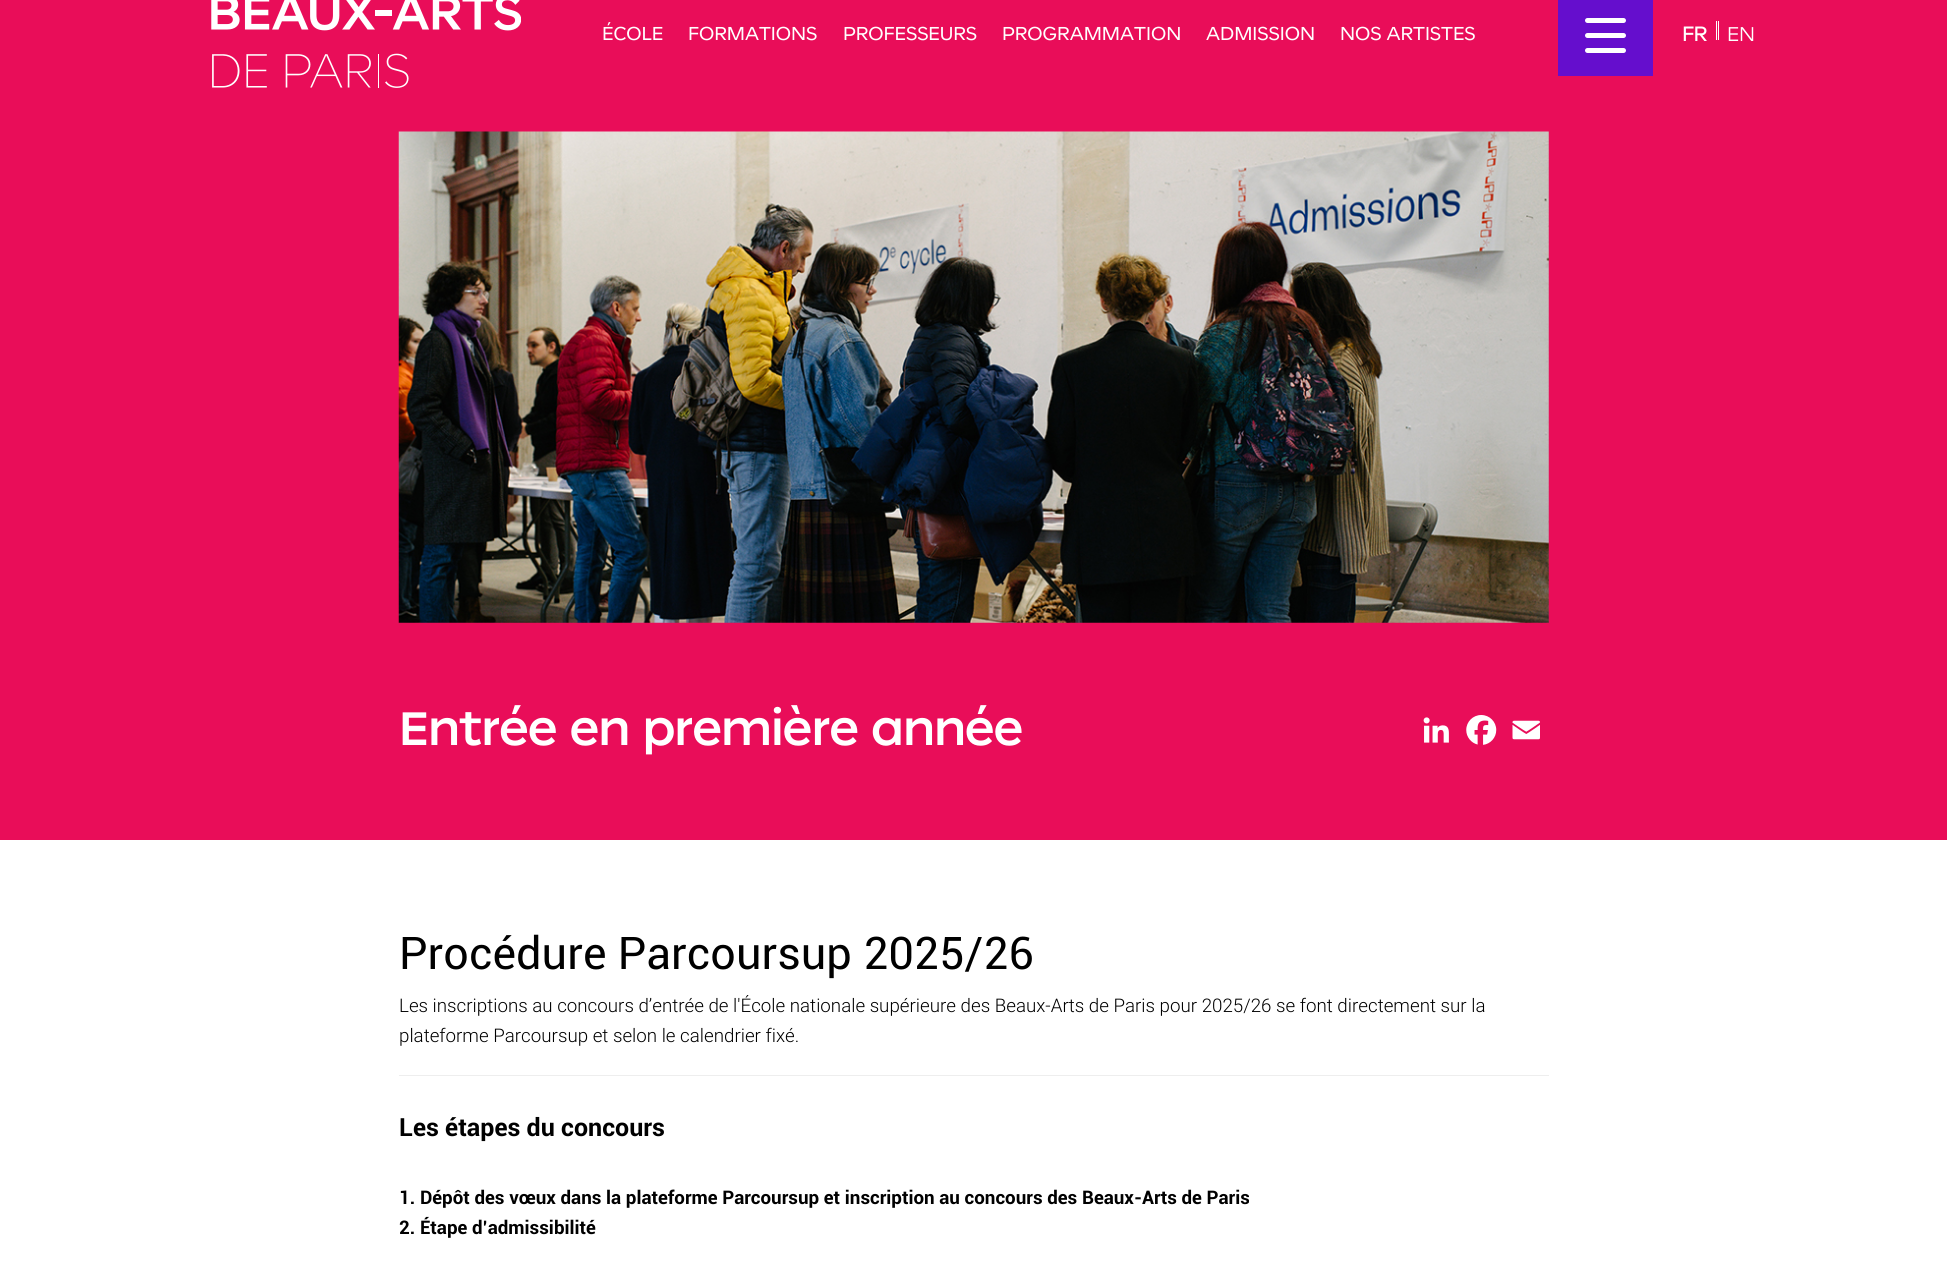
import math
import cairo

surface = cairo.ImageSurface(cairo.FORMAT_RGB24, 1947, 1261)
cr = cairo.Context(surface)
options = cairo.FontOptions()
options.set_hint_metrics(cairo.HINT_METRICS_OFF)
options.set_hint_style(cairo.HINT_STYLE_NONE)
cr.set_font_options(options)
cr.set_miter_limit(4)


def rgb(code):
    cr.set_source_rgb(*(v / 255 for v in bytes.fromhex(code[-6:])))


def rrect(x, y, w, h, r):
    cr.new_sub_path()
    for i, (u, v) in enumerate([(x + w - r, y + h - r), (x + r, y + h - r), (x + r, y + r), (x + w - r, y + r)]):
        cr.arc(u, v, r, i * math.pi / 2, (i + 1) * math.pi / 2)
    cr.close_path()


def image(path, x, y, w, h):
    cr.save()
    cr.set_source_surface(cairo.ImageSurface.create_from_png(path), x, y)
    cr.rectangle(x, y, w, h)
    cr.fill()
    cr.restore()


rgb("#ffffff")
cr.paint()
rgb("#e90d59")
cr.rectangle(0, 0, 1947, 840)
cr.fill()
image("img/1.png", 211, 0, 310, 88)
rgb("#650ecd")
cr.rectangle(1558, 0, 95, 76)
cr.fill()
rgb("#ffffff")
rrect(1585, 18, 41, 5, 2.5)
cr.fill()
rrect(1585, 33, 41, 5, 2.5)
cr.fill()
rrect(1585, 48, 41, 5, 2.5)
cr.fill()
cr.rectangle(1718, 21, 1, 19)
cr.fill()
cr.rectangle(1716, 21, 1, 19)
cr.fill()
image("img/2.png", 398, 131, 1151, 492)
image("img/3.png", 1423, 717, 26, 26)
image("img/4.png", 1466, 715, 31, 30)
image("img/5.png", 1512, 720, 28, 20)
rgb("#eeeeee")
cr.rectangle(399, 1075, 1150, 1)
cr.fill()
cr.select_font_face("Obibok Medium")
cr.set_font_size(18.75)
rgb("#ffffff")
for x, y, s in [
    (602, 40, "ÉCOLE"),
    (688, 40, "FORMATIONS"),
    (843, 40, "PROFESSEURS"),
    (1002, 40, "PROGRAMMATION"),
    (1206, 40, "ADMISSION"),
    (1340, 40, "NOS ARTISTES"),
]:
    cr.move_to(x, y)
    cr.show_text(s)
cr.select_font_face("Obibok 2", cairo.FONT_SLANT_NORMAL, cairo.FONT_WEIGHT_BOLD)
cr.set_font_size(20)
cr.move_to(1682, 41)
cr.show_text("FR")
cr.select_font_face("Obibok")
cr.move_to(1727, 41)
cr.show_text("EN")
cr.select_font_face("Obibok", cairo.FONT_SLANT_NORMAL, cairo.FONT_WEIGHT_BOLD)
cr.set_font_size(47)
cr.move_to(399, 745)
cr.show_text("Entrée en première année")
cr.select_font_face("Roboto")
cr.set_font_size(45)
rgb("#000000")
cr.move_to(399, 969)
cr.show_text("Procédure Parcoursup 2025/26")
cr.select_font_face("Roboto Light")
cr.set_font_size(18.75)
cr.move_to(399, 1012)
cr.show_text("Les inscriptions au concours d’entrée de l'École nationale supérieure des Beaux-Arts de Paris pour 2025/26 se font directement sur la")
cr.move_to(399, 1042)
cr.show_text("plateforme Parcoursup et selon le calendrier fixé.")
cr.select_font_face("Roboto", cairo.FONT_SLANT_NORMAL, cairo.FONT_WEIGHT_BOLD)
cr.set_font_size(25)
cr.move_to(399, 1136)
cr.show_text("Les étapes du concours")
cr.set_font_size(18.75)
cr.move_to(399, 1204)
cr.show_text("1. Dépôt des vœux dans la plateforme Parcoursup et inscription au concours des Beaux-Arts de Paris")
cr.move_to(399, 1234)
cr.show_text("2. Étape d’admissibilité")
surface.write_to_png("page.png")
